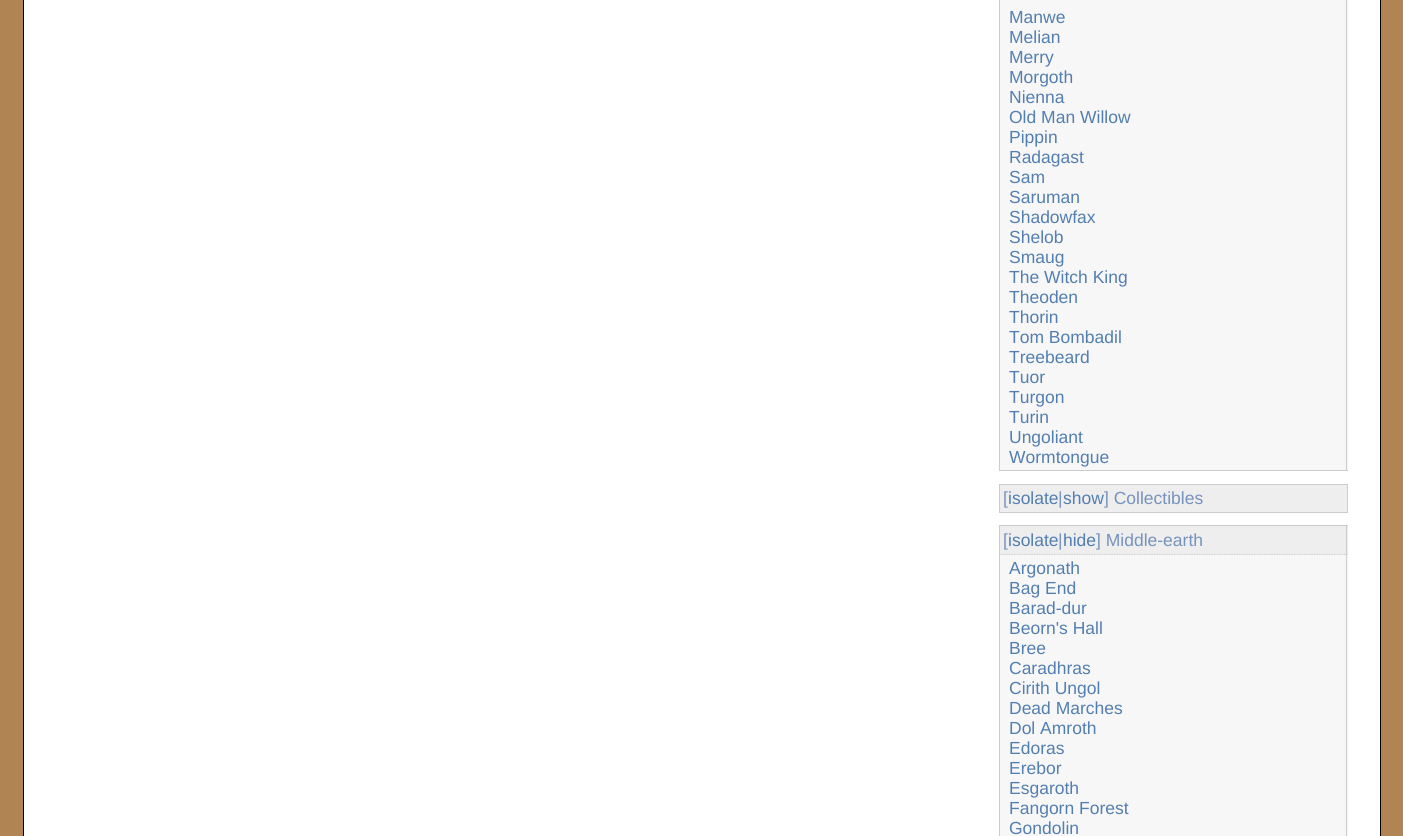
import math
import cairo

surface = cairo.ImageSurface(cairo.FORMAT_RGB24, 1403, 836)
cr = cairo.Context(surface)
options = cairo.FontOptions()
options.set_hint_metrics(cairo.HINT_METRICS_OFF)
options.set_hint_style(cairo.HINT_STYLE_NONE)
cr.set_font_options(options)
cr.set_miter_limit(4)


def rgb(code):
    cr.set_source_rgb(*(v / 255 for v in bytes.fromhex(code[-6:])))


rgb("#b08553")
cr.paint()
rgb("#ffffff")
cr.rectangle(23.5, -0.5, 1357, 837)
cr.fill_preserve()
rgb("#000000")
cr.set_line_width(1)
cr.stroke()
for x, y, w, h, color in [
    (1000, 0, 348, 470, "#f7f7f7"),
    (1346, 0, 1, 471, "#cccccc"),
    (999, 470, 349, 1, "#cccccc"),
    (999, 0, 1, 471, "#cccccc"),
]:
    rgb(color)
    cr.rectangle(x, y, w, h)
    cr.fill()
rgb("#eeeeee")
cr.rectangle(999.5, 484.5, 348, 28)
cr.fill_preserve()
rgb("#cccccc")
cr.stroke()
for x, y, w, h, color in [
    (1000, 526, 348, 29, "#eeeeee"),
    (999, 525, 349, 1, "#cccccc"),
    (1346, 525, 1, 30, "#cccccc"),
]:
    rgb(color)
    cr.rectangle(x, y, w, h)
    cr.fill()
cr.new_path()
cr.move_to(999, 554.5)
cr.line_to(1347.5, 554.5)
cr.set_line_width(1.2)
cr.set_dash([1.25, 1.25])
cr.stroke()
for x, y, w, h, color in [
    (999, 525, 1, 311, "#cccccc"),
    (1000, 555, 348, 281, "#f7f7f7"),
    (1346, 555, 1, 281, "#cccccc"),
]:
    rgb(color)
    cr.rectangle(x, y, w, h)
    cr.fill()
cr.select_font_face("Liberation Sans")
cr.set_font_size(17.5)
rgb("#537eb0")
for x, y, s in [
    (1009, 23, "Manwe"),
    (1009, 43, "Melian"),
    (1009, 63, "Merry"),
    (1009, 83, "Morgoth"),
    (1009, 103, "Nienna"),
    (1009, 123, "Old Man Willow"),
    (1009, 143, "Pippin"),
    (1009, 163, "Radagast"),
    (1009, 183, "Sam"),
    (1009, 203, "Saruman"),
    (1009, 223, "Shadowfax"),
    (1009, 243, "Shelob"),
    (1009, 263, "Smaug"),
    (1009, 283, "The Witch King"),
    (1009, 303, "Theoden"),
    (1009, 323, "Thorin"),
    (1009, 343, "Tom Bombadil"),
    (1009, 363, "Treebeard"),
    (1009, 383, "Tuor"),
    (1009, 403, "Turgon"),
    (1009, 423, "Turin"),
    (1009, 443, "Ungoliant"),
    (1009, 463, "Wormtongue"),
]:
    cr.move_to(x, y)
    cr.show_text(s)
rgb("#7792bc")
cr.move_to(1003, 504)
cr.show_text("[")
rgb("#537eb0")
cr.move_to(1008, 504)
cr.show_text("isolate")
rgb("#7792bc")
cr.move_to(1058, 504)
cr.show_text("|")
rgb("#537eb0")
cr.move_to(1063, 504)
cr.show_text("show")
rgb("#7792bc")
cr.move_to(1104, 504)
cr.show_text("] Collectibles")
cr.move_to(1003, 546)
cr.show_text("[")
rgb("#537eb0")
cr.move_to(1008, 546)
cr.show_text("isolate")
rgb("#7792bc")
cr.move_to(1058, 546)
cr.show_text("|")
rgb("#537eb0")
cr.move_to(1063, 546)
cr.show_text("hide")
rgb("#7792bc")
cr.move_to(1096, 546)
cr.show_text("] Middle-earth")
rgb("#537eb0")
for x, y, s in [
    (1009, 574, "Argonath"),
    (1009, 594, "Bag End"),
    (1009, 614, "Barad-dur"),
    (1009, 634, "Beorn's Hall"),
    (1009, 654, "Bree"),
    (1009, 674, "Caradhras"),
    (1009, 694, "Cirith Ungol"),
    (1009, 714, "Dead Marches"),
    (1009, 734, "Dol Amroth"),
    (1009, 754, "Edoras"),
    (1009, 774, "Erebor"),
    (1009, 794, "Esgaroth"),
    (1009, 814, "Fangorn Forest"),
    (1009, 834, "Gondolin"),
]:
    cr.move_to(x, y)
    cr.show_text(s)
surface.write_to_png("page.png")
